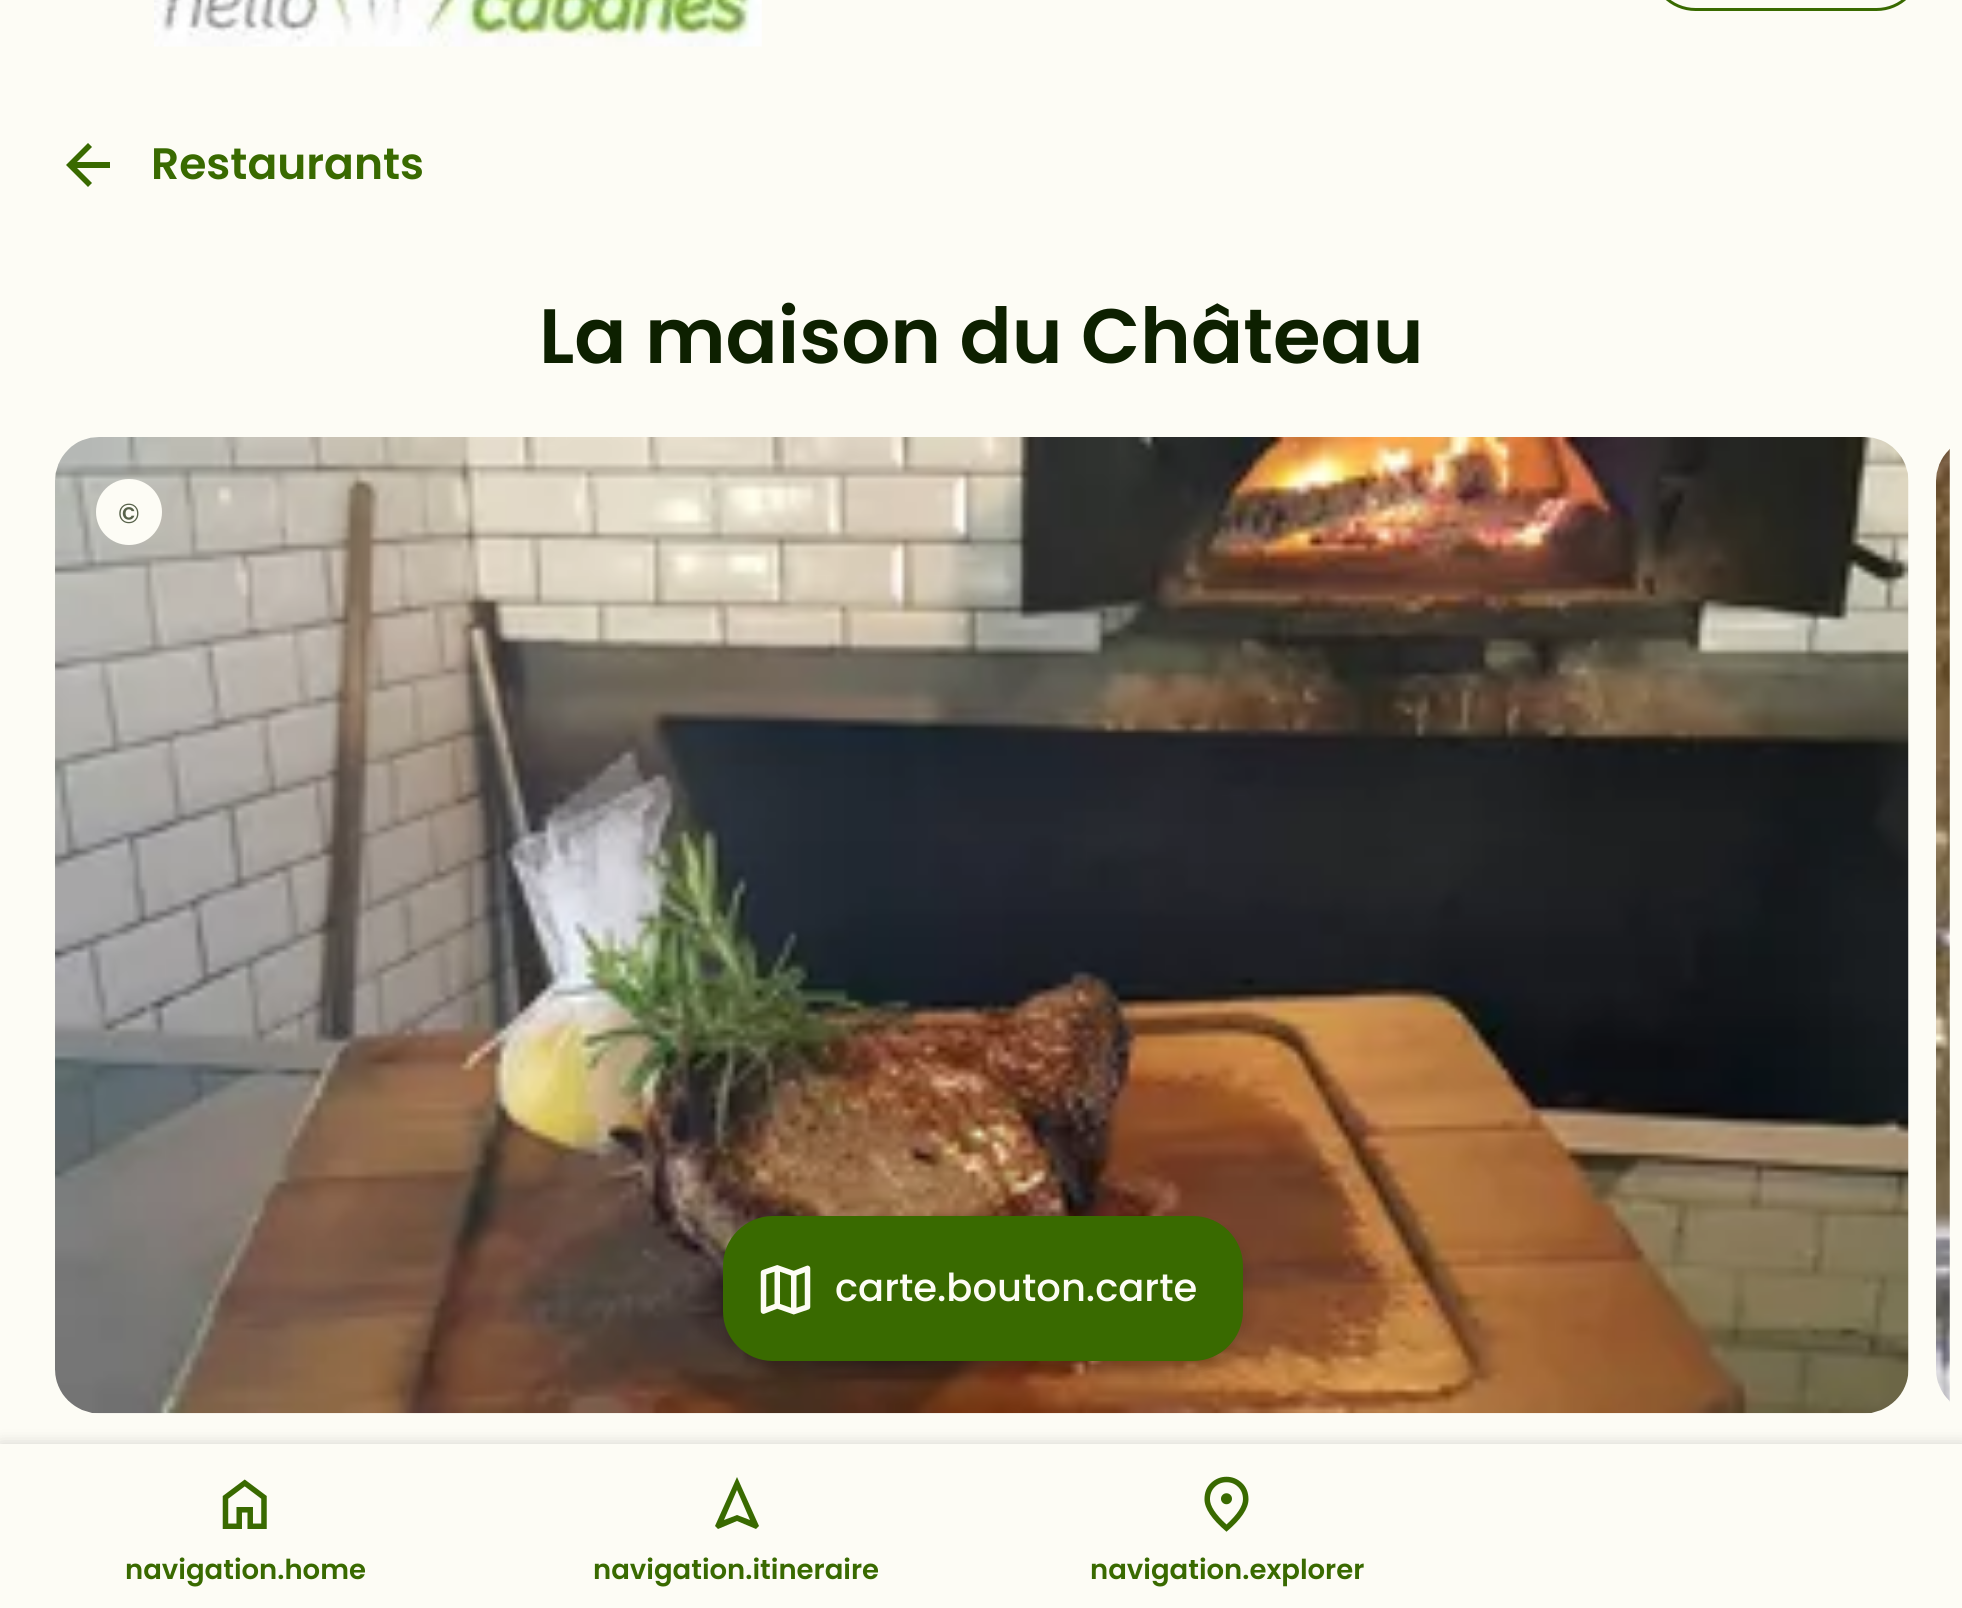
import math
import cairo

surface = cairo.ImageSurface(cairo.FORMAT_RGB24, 1962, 1608)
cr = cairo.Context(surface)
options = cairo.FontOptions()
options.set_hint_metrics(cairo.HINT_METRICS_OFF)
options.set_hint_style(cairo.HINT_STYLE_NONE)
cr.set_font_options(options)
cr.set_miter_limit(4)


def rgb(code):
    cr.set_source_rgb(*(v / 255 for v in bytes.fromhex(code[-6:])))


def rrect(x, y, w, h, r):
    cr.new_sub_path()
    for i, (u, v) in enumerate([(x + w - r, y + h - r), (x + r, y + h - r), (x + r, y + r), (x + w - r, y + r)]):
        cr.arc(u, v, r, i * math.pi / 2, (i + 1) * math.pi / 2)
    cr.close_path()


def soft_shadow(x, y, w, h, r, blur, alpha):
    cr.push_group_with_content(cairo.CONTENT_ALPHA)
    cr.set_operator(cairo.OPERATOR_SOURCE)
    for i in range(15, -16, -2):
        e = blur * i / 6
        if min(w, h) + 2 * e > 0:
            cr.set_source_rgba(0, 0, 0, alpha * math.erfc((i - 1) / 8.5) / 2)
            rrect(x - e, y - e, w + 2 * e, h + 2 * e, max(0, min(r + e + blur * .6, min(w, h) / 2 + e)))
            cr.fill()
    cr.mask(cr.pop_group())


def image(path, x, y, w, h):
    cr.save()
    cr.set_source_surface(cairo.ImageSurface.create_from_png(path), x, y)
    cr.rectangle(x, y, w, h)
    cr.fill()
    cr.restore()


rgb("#fdfcf5")
cr.paint()
rrect(1651.5, -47.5, 269, 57, 44)
rgb("#396a00")
cr.set_line_width(3)
cr.stroke()
image("img/1.png", 154, 0, 608, 47)
cr.new_path()
cr.move_to(77, 168)
cr.line_to(92, 183)
cr.line_to(88, 187)
cr.line_to(66, 165)
cr.line_to(88, 143)
cr.line_to(92, 147)
cr.line_to(77, 162)
cr.line_to(110, 162)
cr.line_to(110, 168)
cr.close_path()
cr.fill()
image("img/2.png", 55, 437, 1854, 977)
rgb("#fdfcf5")
cr.arc(129, 512, 33, 0, 2 * math.pi)
cr.fill()
image("img/3.png", 1936, 448, 14, 954)
rgb("#000000")
soft_shadow(723, 1224, 520, 146, 50, 8, 0.16)
rgb("#396a00")
rrect(724.5, 1217.5, 517, 142, 48.5)
cr.fill_preserve()
cr.stroke()
image("img/4.png", 760, 1265, 51, 50)
rgb("#000000")
soft_shadow(0, 1444, 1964, 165, 0, 8, 0.16)
rgb("#fdfcf5")
cr.rectangle(0, 1444, 1962, 164)
cr.fill()
image("img/5.png", 222, 1479, 45, 50)
rgb("#396a00")
cr.new_path()
cr.move_to(718, 1529)
cr.line_to(715, 1526)
cr.line_to(737, 1477)
cr.line_to(759, 1526)
cr.line_to(756, 1529)
cr.line_to(737, 1521)
cr.close_path()
cr.move_to(724, 1520)
cr.line_to(737, 1515)
cr.line_to(750, 1520)
cr.line_to(737, 1490)
cr.close_path()
cr.move_to(737, 1515)
cr.line_to(737, 1515)
cr.close_path()
cr.fill()
image("img/6.png", 1204, 1476, 45, 56)
cr.select_font_face("Poppins SemiBold")
cr.set_font_size(44)
cr.move_to(151, 179)
cr.show_text("Restaurants")
cr.set_font_size(77)
rgb("#0d2000")
cr.move_to(539, 363)
cr.show_text("La maison du Château")
cr.select_font_face("Poppins Medium")
cr.set_font_size(27.5)
rgb("#57624a")
cr.move_to(118, 523)
cr.show_text("©")
cr.set_font_size(38.5)
rgb("#fdfcf5")
cr.move_to(835, 1301)
cr.show_text("carte.bouton.carte")
cr.select_font_face("Poppins SemiBold")
cr.set_font_size(27.5)
rgb("#396a00")
for x, y, s in [
    (125, 1579, "navigation.home"),
    (593, 1579, "navigation.itineraire"),
    (1090, 1579, "navigation.explorer"),
]:
    cr.move_to(x, y)
    cr.show_text(s)
surface.write_to_png("page.png")
